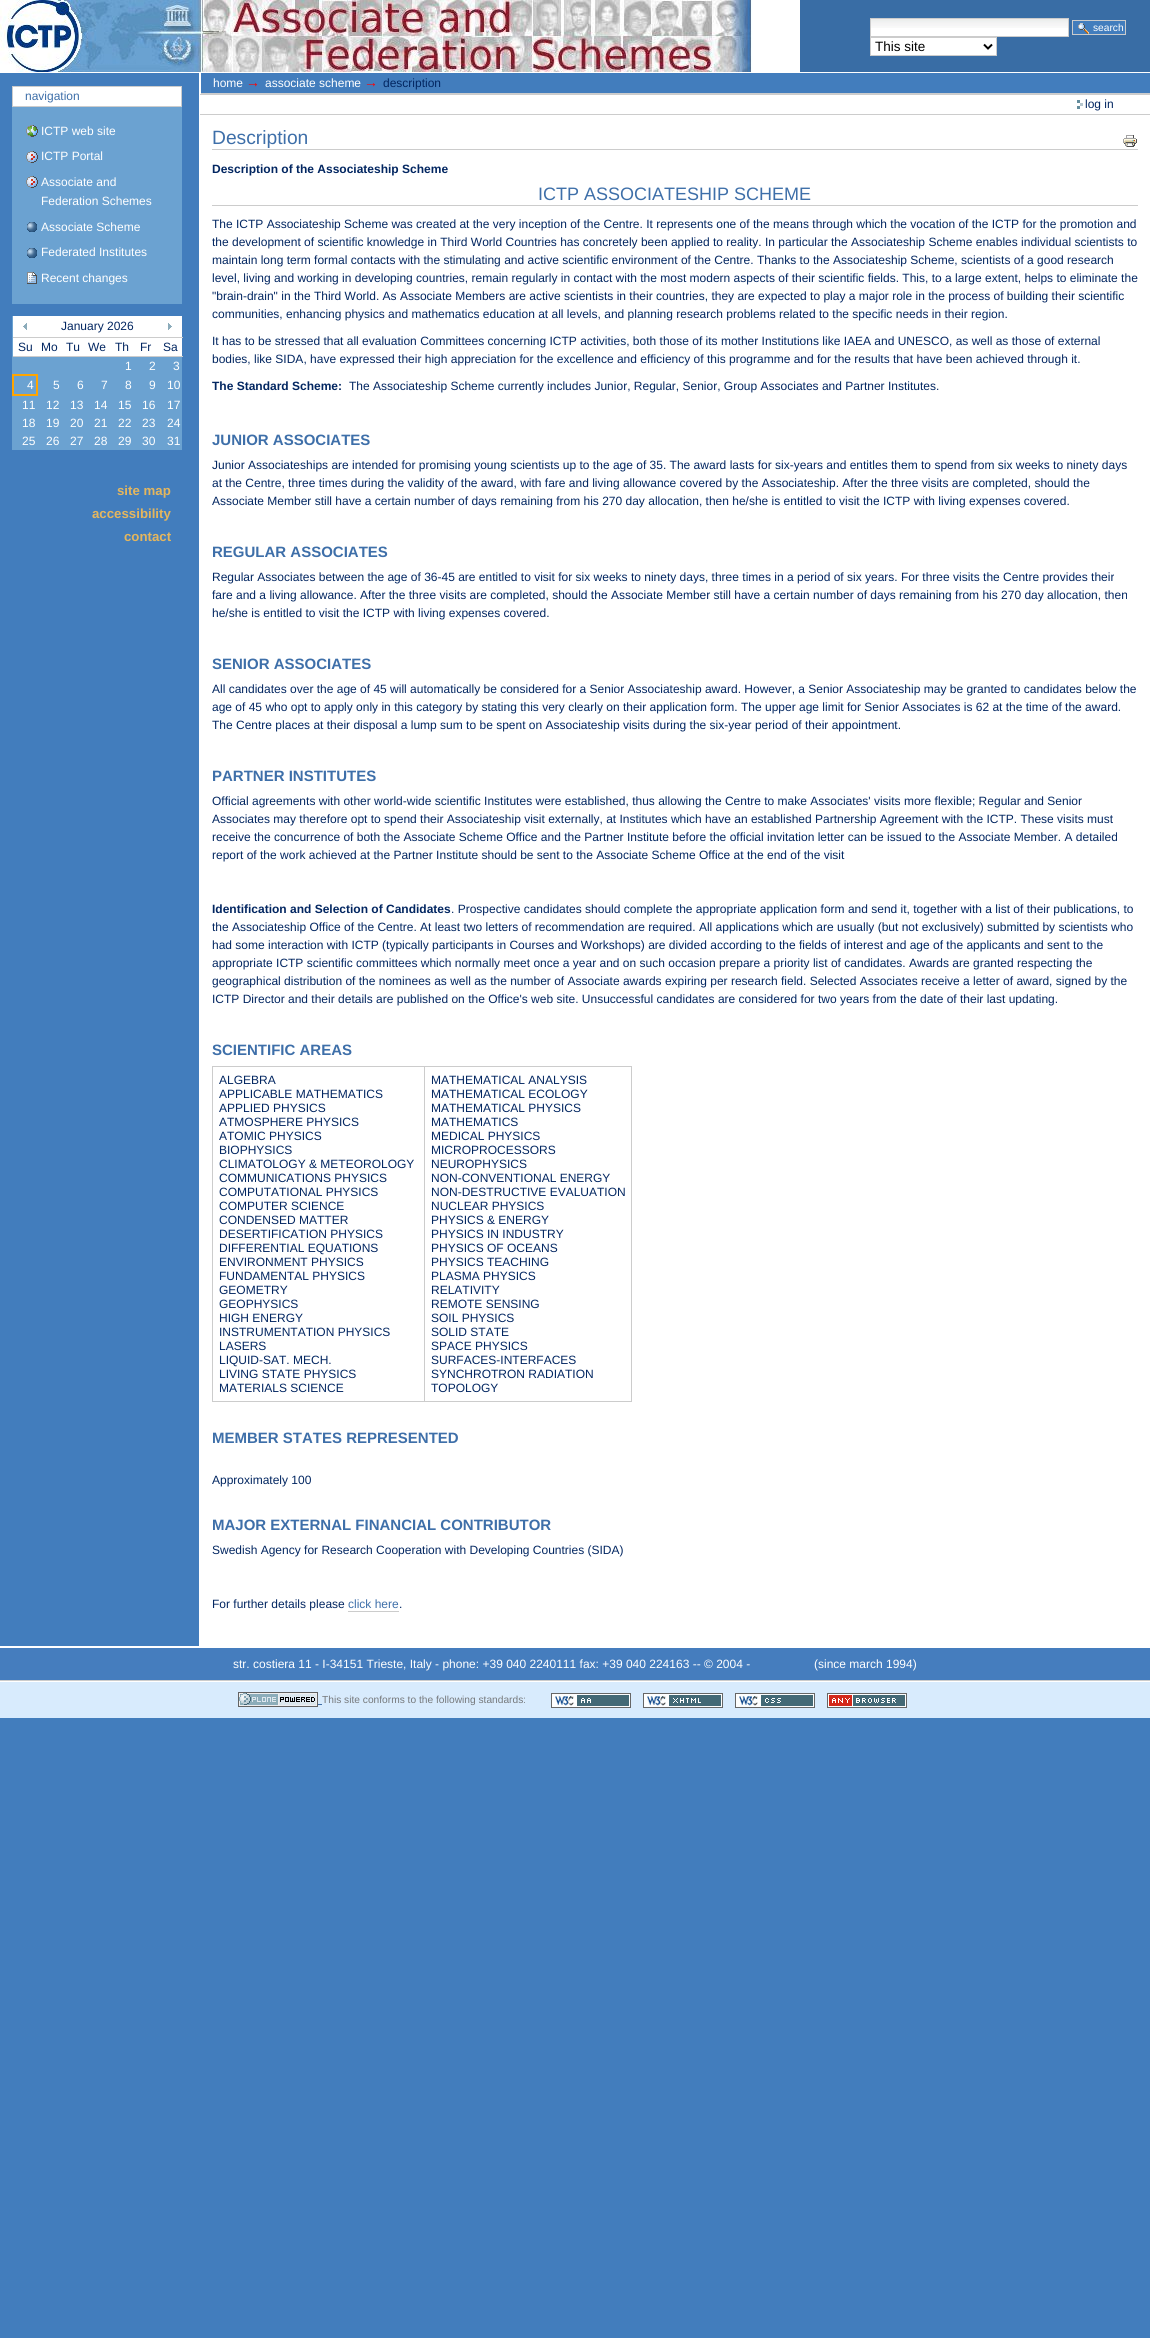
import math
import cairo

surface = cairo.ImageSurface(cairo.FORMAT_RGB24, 1150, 2338)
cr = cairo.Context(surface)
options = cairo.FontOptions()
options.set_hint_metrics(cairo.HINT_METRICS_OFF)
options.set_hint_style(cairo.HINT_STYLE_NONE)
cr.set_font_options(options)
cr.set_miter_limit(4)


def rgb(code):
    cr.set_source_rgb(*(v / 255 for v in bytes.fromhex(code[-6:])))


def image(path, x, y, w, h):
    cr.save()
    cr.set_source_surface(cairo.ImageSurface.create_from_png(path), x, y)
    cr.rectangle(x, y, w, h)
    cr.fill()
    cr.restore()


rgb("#427dbd")
cr.paint()
rgb("#396da5")
cr.rectangle(800, 0, 350, 72)
cr.fill()
image("img/1.png", 0, 0, 800, 72)
rgb("#ffffff")
cr.rectangle(871, 28, 197, 8)
cr.fill()
image("img/2.png", 871, 19, 197, 9)
cr.rectangle(870.5, 18.5, 198, 18)
rgb("#cccccc")
cr.set_line_width(1)
cr.stroke()
rgb("#427dbd")
cr.rectangle(1073, 21, 52, 13)
cr.fill()
image("img/3.png", 1078, 23, 11, 11)
cr.rectangle(1072.5, 20.5, 53, 14)
rgb("#cccccc")
cr.stroke()
rgb("#ffffff")
cr.rectangle(870.5, 37.5, 126, 18)
cr.fill_preserve()
rgb("#cccccc")
cr.stroke()
cr.new_path()
cr.move_to(984, 44.5)
cr.line_to(988, 48.5)
cr.line_to(992, 44.5)
rgb("#000000")
cr.set_line_width(2)
cr.stroke()
for x, y, w, h, color in [
    (0, 72, 1150, 1, "#ffffff"),
    (0, 1646, 1150, 2, "#ffffff"),
    (12, 107, 170, 197, "#6ba2d1"),
]:
    rgb(color)
    cr.rectangle(x, y, w, h)
    cr.fill()
rgb("#ffffff")
cr.rectangle(12.5, 86.5, 169, 20)
cr.fill_preserve()
rgb("#cccccc")
cr.set_line_width(1)
cr.stroke()
image("img/4.png", 26, 125, 12, 12)
image("img/5.png", 26, 151, 12, 12)
image("img/5.png", 26, 176, 12, 12)
image("img/6.png", 27, 222, 10, 10)
image("img/6.png", 27, 248, 10, 10)
image("img/7.png", 27, 272, 10, 12)
rgb("#6ba2d1")
cr.rectangle(12, 316, 170, 134)
cr.fill()
rgb("#ffffff")
cr.rectangle(13, 316, 169, 21)
cr.fill()
image("img/8.png", 23, 323, 4, 7)
image("img/9.png", 168, 323, 4, 7)
for x, y, w, h, color in [
    (13, 338, 169, 18, "#ffffff"),
    (13, 337, 170, 1, "#cccccc"),
    (13, 356, 170, 1, "#cccccc"),
    (12, 374, 26, 2, "#ffa500"),
    (36, 374, 2, 22, "#ffa500"),
    (12, 394, 26, 2, "#ffa500"),
    (12, 374, 2, 22, "#ffa500"),
    (200, 95, 950, 1551, "#ffffff"),
    (199, 72, 1, 1575, "#ffffff"),
    (200, 93, 950, 2, "#cccccc"),
    (200, 73, 1, 21, "#ffffff"),
    (200, 114, 950, 1, "#cccccc"),
]:
    rgb(color)
    cr.rectangle(x, y, w, h)
    cr.fill()
image("img/10.png", 1077, 100, 6, 9)
cr.rectangle(212, 149, 926, 1)
cr.fill()
image("img/11.png", 1123, 135, 14, 12)
for x, y, w, h, color in [
    (212, 205, 926, 1, "#cccccc"),
    (212, 1066, 420, 1, "#cccccc"),
    (631, 1066, 1, 336, "#cccccc"),
    (212, 1401, 420, 1, "#cccccc"),
    (212, 1066, 1, 336, "#cccccc"),
    (424, 1066, 1, 336, "#cccccc"),
    (348, 1611, 51, 1, "#cccccc"),
    (0, 1648, 1150, 32, "#457dbe"),
    (0, 1680, 1150, 1, "#cccccc"),
    (0, 1682, 1150, 36, "#d8ebfd"),
    (0, 1681, 1150, 1, "#ffffff"),
]:
    rgb(color)
    cr.rectangle(x, y, w, h)
    cr.fill()
image("img/12.png", 238, 1692, 80, 15)
rgb("#3e6fa9")
cr.rectangle(318, 1704, 4, 1)
cr.fill()
image("img/13.png", 551, 1693, 80, 15)
image("img/14.png", 643, 1693, 80, 15)
image("img/15.png", 735, 1693, 80, 15)
image("img/16.png", 827, 1693, 80, 15)
cr.select_font_face("Liberation Sans")
cr.set_font_size(10.2)
rgb("#ffffff")
cr.move_to(1093, 31)
cr.show_text("search")
cr.set_font_size(13.5)
rgb("#000000")
cr.move_to(875, 51)
cr.show_text("This site")
cr.set_font_size(12)
rgb("#3e6fa9")
cr.move_to(25, 100)
cr.show_text("navigation")
rgb("#ffffff")
for x, y, s in [
    (41, 135, "ICTP web site"),
    (41, 160, "ICTP Portal"),
    (41, 186, "Associate and"),
    (41, 205, "Federation Schemes"),
    (41, 231, "Associate Scheme"),
    (41, 256, "Federated Institutes"),
    (41, 282, "Recent changes"),
]:
    cr.move_to(x, y)
    cr.show_text(s)
rgb("#022661")
for x, y, s in [
    (61, 330, "January 2026"),
    (18, 351, "Su"),
    (41, 351, "Mo"),
    (66, 351, "Tu"),
    (88, 351, "We"),
    (115, 351, "Th"),
    (140, 351, "Fr"),
    (163, 351, "Sa"),
]:
    cr.move_to(x, y)
    cr.show_text(s)
rgb("#ffffff")
for x, y, s in [
    (125, 370, "1"),
    (149, 370, "2"),
    (173, 370, "3"),
    (27, 389, "4"),
    (53, 389, "5"),
    (77, 389, "6"),
    (101, 389, "7"),
    (125, 389, "8"),
    (149, 389, "9"),
    (167, 389, "10"),
    (22, 409, "11"),
    (46, 409, "12"),
    (70, 409, "13"),
    (94, 409, "14"),
    (118, 409, "15"),
    (142, 409, "16"),
    (167, 409, "17"),
    (22, 427, "18"),
    (46, 427, "19"),
    (70, 427, "20"),
    (94, 427, "21"),
    (118, 427, "22"),
    (142, 427, "23"),
    (167, 427, "24"),
    (22, 445, "25"),
    (46, 445, "26"),
    (70, 445, "27"),
    (94, 445, "28"),
    (118, 445, "29"),
    (142, 445, "30"),
    (167, 445, "31"),
]:
    cr.move_to(x, y)
    cr.show_text(s)
cr.select_font_face("Liberation Sans", cairo.FONT_SLANT_NORMAL, cairo.FONT_WEIGHT_BOLD)
cr.set_font_size(13.25)
rgb("#e4b65e")
for x, y, s in [
    (117, 495, "site map"),
    (92, 518, "accessibility"),
    (124, 541, "contact"),
]:
    cr.move_to(x, y)
    cr.show_text(s)
cr.select_font_face("Liberation Sans")
cr.set_font_size(12)
rgb("#ffffff")
cr.move_to(213, 87)
cr.show_text("home")
cr.set_font_size(14)
rgb("#ff0000")
cr.move_to(246, 87)
cr.show_text("→")
cr.set_font_size(12)
rgb("#ffffff")
cr.move_to(265, 87)
cr.show_text("associate scheme")
cr.set_font_size(14)
rgb("#ff0000")
cr.move_to(364, 87)
cr.show_text("→")
cr.set_font_size(12)
rgb("#022661")
cr.move_to(383, 87)
cr.show_text("description")
cr.move_to(1085, 108)
cr.show_text("log in")
cr.set_font_size(19.25)
rgb("#3e6fa9")
cr.move_to(212, 144)
cr.show_text("Description")
cr.select_font_face("Liberation Sans", cairo.FONT_SLANT_NORMAL, cairo.FONT_WEIGHT_BOLD)
cr.set_font_size(12)
rgb("#022661")
cr.move_to(212, 173)
cr.show_text("Description of the Associateship Scheme")
cr.select_font_face("Liberation Sans")
cr.set_font_size(18)
rgb("#3e6fa9")
cr.move_to(538, 200)
cr.show_text("ICTP ASSOCIATESHIP SCHEME")
cr.set_font_size(12)
rgb("#022661")
for x, y, s in [
    (212, 228, "The ICTP Associateship Scheme was created at the very inception of the Centre. It represents one of the means through which the vocation of the ICTP for the promotion and"),
    (212, 246, "the development of scientific knowledge in Third World Countries has concretely been applied to reality. In particular the Associateship Scheme enables individual scientists to"),
    (212, 264, "maintain long term formal contacts with the stimulating and active scientific environment of the Centre. Thanks to the Associateship Scheme, scientists of a good research"),
    (212, 282, "level, living and working in developing countries, remain regularly in contact with the most modern aspects of their scientific fields. This, to a large extent, helps to eliminate the"),
    (212, 300, "\"brain-drain\" in the Third World. As Associate Members are active scientists in their countries, they are expected to play a major role in the process of building their scientific"),
    (212, 318, "communities, enhancing physics and mathematics education at all levels, and planning research problems related to the specific needs in their region."),
    (212, 345, "It has to be stressed that all evaluation Committees concerning ICTP activities, both those of its mother Institutions like IAEA and UNESCO, as well as those of external"),
    (212, 363, "bodies, like SIDA, have expressed their high appreciation for the excellence and efficiency of this programme and for the results that have been achieved through it."),
]:
    cr.move_to(x, y)
    cr.show_text(s)
cr.select_font_face("Liberation Sans", cairo.FONT_SLANT_NORMAL, cairo.FONT_WEIGHT_BOLD)
cr.move_to(212, 390)
cr.show_text("The Standard Scheme:")
cr.select_font_face("Liberation Sans")
cr.move_to(349, 390)
cr.show_text("The Associateship Scheme currently includes Junior, Regular, Senior, Group Associates and Partner Institutes.")
cr.select_font_face("Liberation Sans", cairo.FONT_SLANT_NORMAL, cairo.FONT_WEIGHT_BOLD)
cr.set_font_size(15)
rgb("#3e6fa9")
cr.move_to(212, 445)
cr.show_text("JUNIOR ASSOCIATES")
cr.select_font_face("Liberation Sans")
cr.set_font_size(12)
rgb("#022661")
for x, y, s in [
    (212, 469, "Junior Associateships are intended for promising young scientists up to the age of 35. The award lasts for six-years and entitles them to spend from six weeks to ninety days"),
    (212, 487, "at the Centre, three times during the validity of the award, with fare and living allowance covered by the Associateship. After the three visits are completed, should the"),
    (212, 505, "Associate Member still have a certain number of days remaining from his 270 day allocation, then he/she is entitled to visit the ICTP with living expenses covered."),
]:
    cr.move_to(x, y)
    cr.show_text(s)
cr.select_font_face("Liberation Sans", cairo.FONT_SLANT_NORMAL, cairo.FONT_WEIGHT_BOLD)
cr.set_font_size(15)
rgb("#3e6fa9")
cr.move_to(212, 557)
cr.show_text("REGULAR ASSOCIATES")
cr.select_font_face("Liberation Sans")
cr.set_font_size(12)
rgb("#022661")
for x, y, s in [
    (212, 581, "Regular Associates between the age of 36-45 are entitled to visit for six weeks to ninety days, three times in a period of six years. For three visits the Centre provides their"),
    (212, 599, "fare and a living allowance. After the three visits are completed, should the Associate Member still have a certain number of days remaining from his 270 day allocation, then"),
    (212, 617, "he/she is entitled to visit the ICTP with living expenses covered."),
]:
    cr.move_to(x, y)
    cr.show_text(s)
cr.select_font_face("Liberation Sans", cairo.FONT_SLANT_NORMAL, cairo.FONT_WEIGHT_BOLD)
cr.set_font_size(15)
rgb("#3e6fa9")
cr.move_to(212, 669)
cr.show_text("SENIOR ASSOCIATES")
cr.select_font_face("Liberation Sans")
cr.set_font_size(12)
rgb("#022661")
for x, y, s in [
    (212, 693, "All candidates over the age of 45 will automatically be considered for a Senior Associateship award. However, a Senior Associateship may be granted to candidates below the"),
    (212, 711, "age of 45 who opt to apply only in this category by stating this very clearly on their application form. The upper age limit for Senior Associates is 62 at the time of the award."),
    (212, 729, "The Centre places at their disposal a lump sum to be spent on Associateship visits during the six-year period of their appointment."),
]:
    cr.move_to(x, y)
    cr.show_text(s)
cr.select_font_face("Liberation Sans", cairo.FONT_SLANT_NORMAL, cairo.FONT_WEIGHT_BOLD)
cr.set_font_size(15)
rgb("#3e6fa9")
cr.move_to(212, 781)
cr.show_text("PARTNER INSTITUTES")
cr.select_font_face("Liberation Sans")
cr.set_font_size(12)
rgb("#022661")
for x, y, s in [
    (212, 805, "Official agreements with other world-wide scientific Institutes were established, thus allowing the Centre to make Associates' visits more flexible; Regular and Senior"),
    (212, 823, "Associates may therefore opt to spend their Associateship visit externally, at Institutes which have an established Partnership Agreement with the ICTP. These visits must"),
    (212, 841, "receive the concurrence of both the Associate Scheme Office and the Partner Institute before the official invitation letter can be issued to the Associate Member. A detailed"),
    (212, 859, "report of the work achieved at the Partner Institute should be sent to the Associate Scheme Office at the end of the visit"),
]:
    cr.move_to(x, y)
    cr.show_text(s)
cr.select_font_face("Liberation Sans", cairo.FONT_SLANT_NORMAL, cairo.FONT_WEIGHT_BOLD)
cr.move_to(212, 913)
cr.show_text("Identification and Selection of Candidates")
cr.select_font_face("Liberation Sans")
for x, y, s in [
    (451, 913, ". Prospective candidates should complete the appropriate application form and send it, together with a list of their publications, to"),
    (212, 931, "the Associateship Office of the Centre. At least two letters of recommendation are required. All applications which are usually (but not exclusively) submitted by scientists who"),
    (212, 949, "had some interaction with ICTP (typically participants in Courses and Workshops) are divided according to the fields of interest and age of the applicants and sent to the"),
    (212, 967, "appropriate ICTP scientific committees which normally meet once a year and on such occasion prepare a priority list of candidates. Awards are granted respecting the"),
    (212, 985, "geographical distribution of the nominees as well as the number of Associate awards expiring per research field. Selected Associates receive a letter of award, signed by the"),
    (212, 1003, "ICTP Director and their details are published on the Office's web site. Unsuccessful candidates are considered for two years from the date of their last updating."),
]:
    cr.move_to(x, y)
    cr.show_text(s)
cr.select_font_face("Liberation Sans", cairo.FONT_SLANT_NORMAL, cairo.FONT_WEIGHT_BOLD)
cr.set_font_size(15)
rgb("#3e6fa9")
cr.move_to(212, 1055)
cr.show_text("SCIENTIFIC AREAS")
cr.select_font_face("Liberation Sans")
cr.set_font_size(12)
rgb("#022661")
for x, y, s in [
    (219, 1084, "ALGEBRA"),
    (219, 1098, "APPLICABLE MATHEMATICS"),
    (219, 1112, "APPLIED PHYSICS"),
    (219, 1126, "ATMOSPHERE PHYSICS"),
    (219, 1140, "ATOMIC PHYSICS"),
    (219, 1154, "BIOPHYSICS"),
    (219, 1168, "CLIMATOLOGY & METEOROLOGY"),
    (219, 1182, "COMMUNICATIONS PHYSICS"),
    (219, 1196, "COMPUTATIONAL PHYSICS"),
    (219, 1210, "COMPUTER SCIENCE"),
    (219, 1224, "CONDENSED MATTER"),
    (219, 1238, "DESERTIFICATION PHYSICS"),
    (219, 1252, "DIFFERENTIAL EQUATIONS"),
    (219, 1266, "ENVIRONMENT PHYSICS"),
    (219, 1280, "FUNDAMENTAL PHYSICS"),
    (219, 1294, "GEOMETRY"),
    (219, 1308, "GEOPHYSICS"),
    (219, 1322, "HIGH ENERGY"),
    (219, 1336, "INSTRUMENTATION PHYSICS"),
    (219, 1350, "LASERS"),
    (219, 1364, "LIQUID-SAT. MECH."),
    (219, 1378, "LIVING STATE PHYSICS"),
    (219, 1392, "MATERIALS SCIENCE"),
    (431, 1084, "MATHEMATICAL ANALYSIS"),
    (431, 1098, "MATHEMATICAL ECOLOGY"),
    (431, 1112, "MATHEMATICAL PHYSICS"),
    (431, 1126, "MATHEMATICS"),
    (431, 1140, "MEDICAL PHYSICS"),
    (431, 1154, "MICROPROCESSORS"),
    (431, 1168, "NEUROPHYSICS"),
    (431, 1182, "NON-CONVENTIONAL ENERGY"),
    (431, 1196, "NON-DESTRUCTIVE EVALUATION"),
    (431, 1210, "NUCLEAR PHYSICS"),
    (431, 1224, "PHYSICS & ENERGY"),
    (431, 1238, "PHYSICS IN INDUSTRY"),
    (431, 1252, "PHYSICS OF OCEANS"),
    (431, 1266, "PHYSICS TEACHING"),
    (431, 1280, "PLASMA PHYSICS"),
    (431, 1294, "RELATIVITY"),
    (431, 1308, "REMOTE SENSING"),
    (431, 1322, "SOIL PHYSICS"),
    (431, 1336, "SOLID STATE"),
    (431, 1350, "SPACE PHYSICS"),
    (431, 1364, "SURFACES-INTERFACES"),
    (431, 1378, "SYNCHROTRON RADIATION"),
    (431, 1392, "TOPOLOGY"),
]:
    cr.move_to(x, y)
    cr.show_text(s)
cr.select_font_face("Liberation Sans", cairo.FONT_SLANT_NORMAL, cairo.FONT_WEIGHT_BOLD)
cr.set_font_size(15)
rgb("#3e6fa9")
cr.move_to(212, 1443)
cr.show_text("MEMBER STATES REPRESENTED")
cr.select_font_face("Liberation Sans")
cr.set_font_size(12)
rgb("#022661")
cr.move_to(212, 1484)
cr.show_text("Approximately 100")
cr.select_font_face("Liberation Sans", cairo.FONT_SLANT_NORMAL, cairo.FONT_WEIGHT_BOLD)
cr.set_font_size(15)
rgb("#3e6fa9")
cr.move_to(212, 1530)
cr.show_text("MAJOR EXTERNAL FINANCIAL CONTRIBUTOR")
cr.select_font_face("Liberation Sans")
cr.set_font_size(12)
rgb("#022661")
cr.move_to(212, 1554)
cr.show_text("Swedish Agency for Research Cooperation with Developing Countries (SIDA)")
cr.move_to(212, 1608)
cr.show_text("For further details please")
rgb("#3e6fa9")
cr.move_to(348, 1608)
cr.show_text("click here")
rgb("#022661")
cr.move_to(399, 1608)
cr.show_text(".")
rgb("#ffffff")
cr.move_to(233, 1668)
cr.show_text("str. costiera 11 - I-34151 Trieste, Italy - phone: +39 040 2240111 fax: +39 040 224163 -- © 2004 -")
cr.move_to(814, 1668)
cr.show_text("(since march 1994)")
cr.set_font_size(10.2)
rgb("#76797c")
cr.move_to(322, 1703)
cr.show_text("This site conforms to the following standards:")
surface.write_to_png("page.png")
